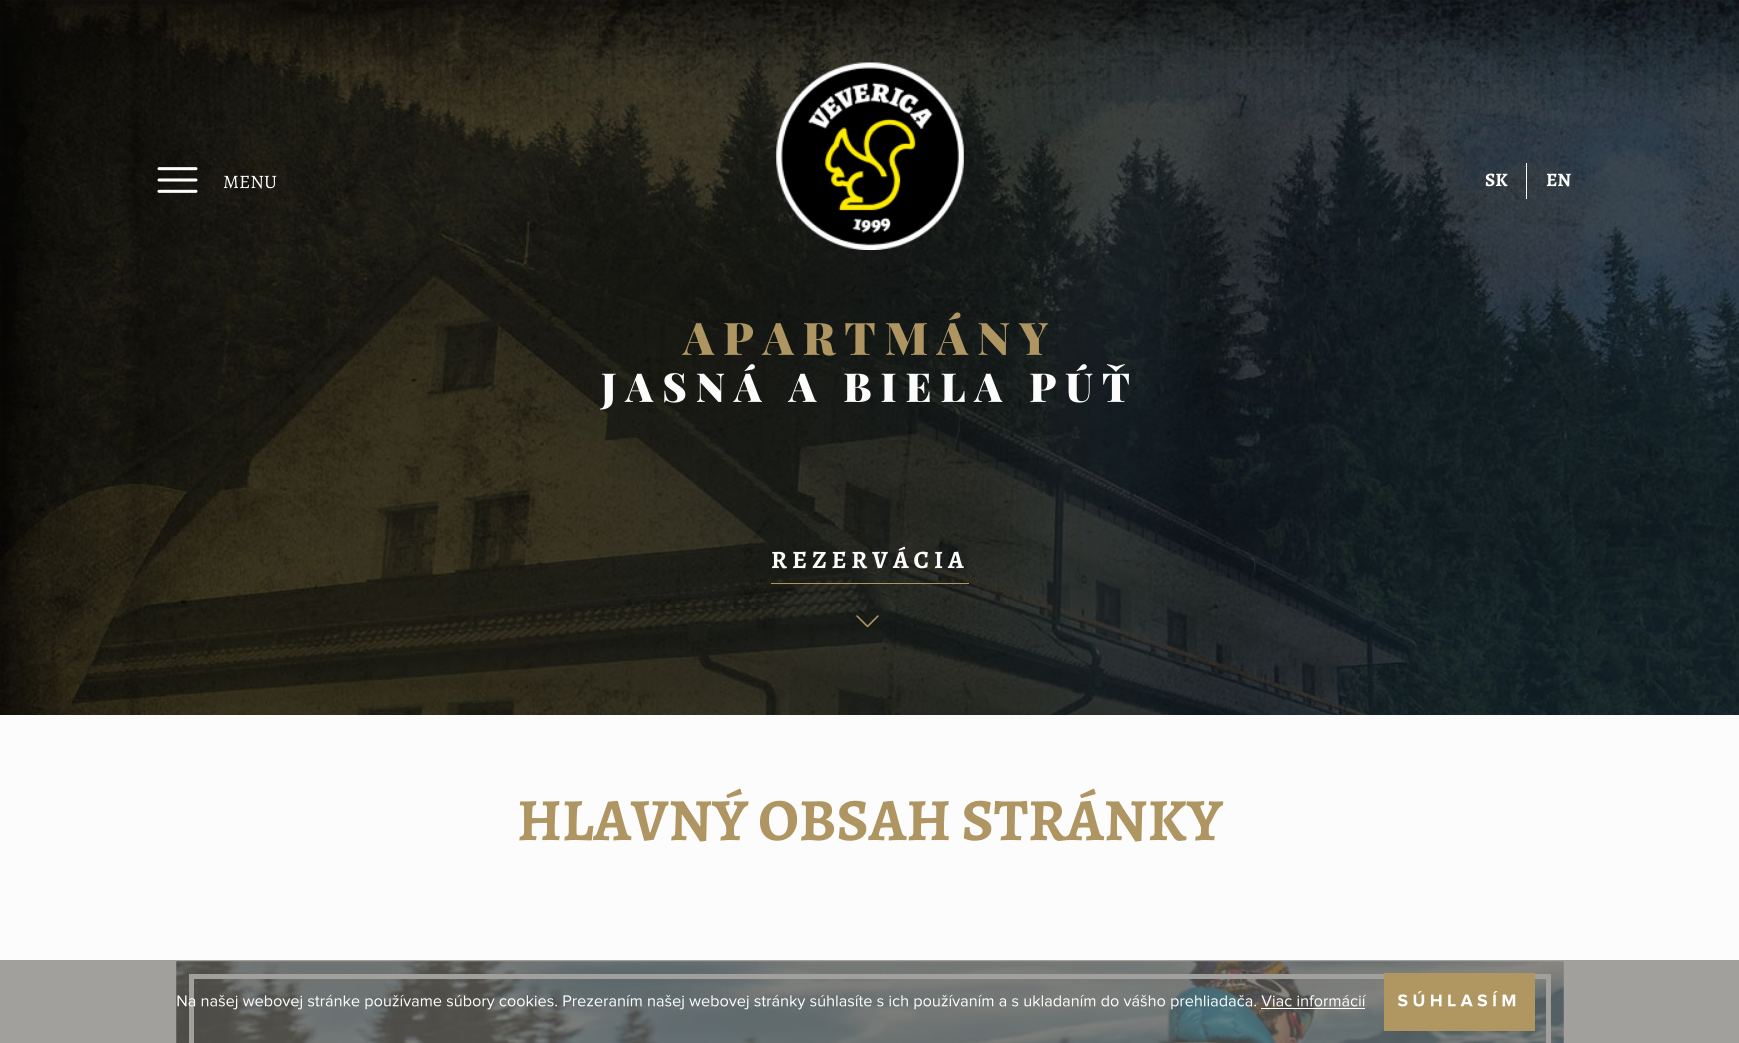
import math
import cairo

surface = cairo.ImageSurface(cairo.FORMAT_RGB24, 1739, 1043)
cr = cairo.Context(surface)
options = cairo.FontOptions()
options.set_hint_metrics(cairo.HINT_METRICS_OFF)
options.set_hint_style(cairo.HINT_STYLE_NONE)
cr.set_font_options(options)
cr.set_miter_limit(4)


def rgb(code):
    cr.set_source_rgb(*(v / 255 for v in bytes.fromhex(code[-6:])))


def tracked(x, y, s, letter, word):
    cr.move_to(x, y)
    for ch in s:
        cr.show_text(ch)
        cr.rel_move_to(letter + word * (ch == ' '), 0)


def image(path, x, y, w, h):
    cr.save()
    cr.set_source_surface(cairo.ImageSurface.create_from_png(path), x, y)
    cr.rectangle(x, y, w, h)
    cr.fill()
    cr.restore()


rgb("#fcfcfc")
cr.paint()
rgb("#a1a09c")
cr.rectangle(0, 960, 1739, 83)
cr.fill()
image("img/1.png", 0, 0, 1739, 715)
image("img/2.png", 157, 167, 41, 26)
rgb("#fcfcfc")
cr.rectangle(1526, 163, 1, 36)
cr.fill()
image("img/3.png", 776, 62, 188, 188)
rgb("#ae9561")
cr.rectangle(771, 583, 198, 1)
cr.fill()
image("img/4.png", 856, 615, 23, 13)
image("img/5.png", 176, 961, 1388, 82)
cr.rectangle(191.5, 976.5, 1357, 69)
rgb("#a1a09c")
cr.set_line_width(5)
cr.stroke()
image("img/6.png", 177, 994, 1079, 16)
image("img/7.png", 1261, 994, 105, 13)
rgb("#b09762")
cr.rectangle(1384, 973, 151, 58)
cr.fill()
image("img/8.png", 1398, 991, 118, 16)
rgb("#ffffff")
cr.rectangle(1261, 1008, 104, 1)
cr.fill()
cr.select_font_face("Alegreya")
cr.set_font_size(19)
rgb("#fcfcfc")
cr.move_to(223, 188)
cr.show_text("MENU")
cr.select_font_face("Alegreya", cairo.FONT_SLANT_NORMAL, cairo.FONT_WEIGHT_BOLD)
cr.move_to(1485, 186)
cr.show_text("SK")
cr.move_to(1546, 186)
cr.show_text("EN")
cr.select_font_face("Playfair Display Black")
cr.set_font_size(45)
rgb("#ae9561")
tracked(683, 355, "APARTMÁNY", 9, 0)
cr.set_font_size(40)
rgb("#fcfcfc")
tracked(601, 402, "JASNÁ A BIELA PÚŤ", 9, 0)
cr.select_font_face("Alegreya", cairo.FONT_SLANT_NORMAL, cairo.FONT_WEIGHT_BOLD)
cr.set_font_size(25)
tracked(771, 568, "REZERVÁCIA", 5, 0)
cr.set_font_size(60)
rgb("#ae9561")
cr.move_to(517, 840)
cr.show_text("HLAVNÝ OBSAH STRÁNKY")
surface.write_to_png("page.png")
